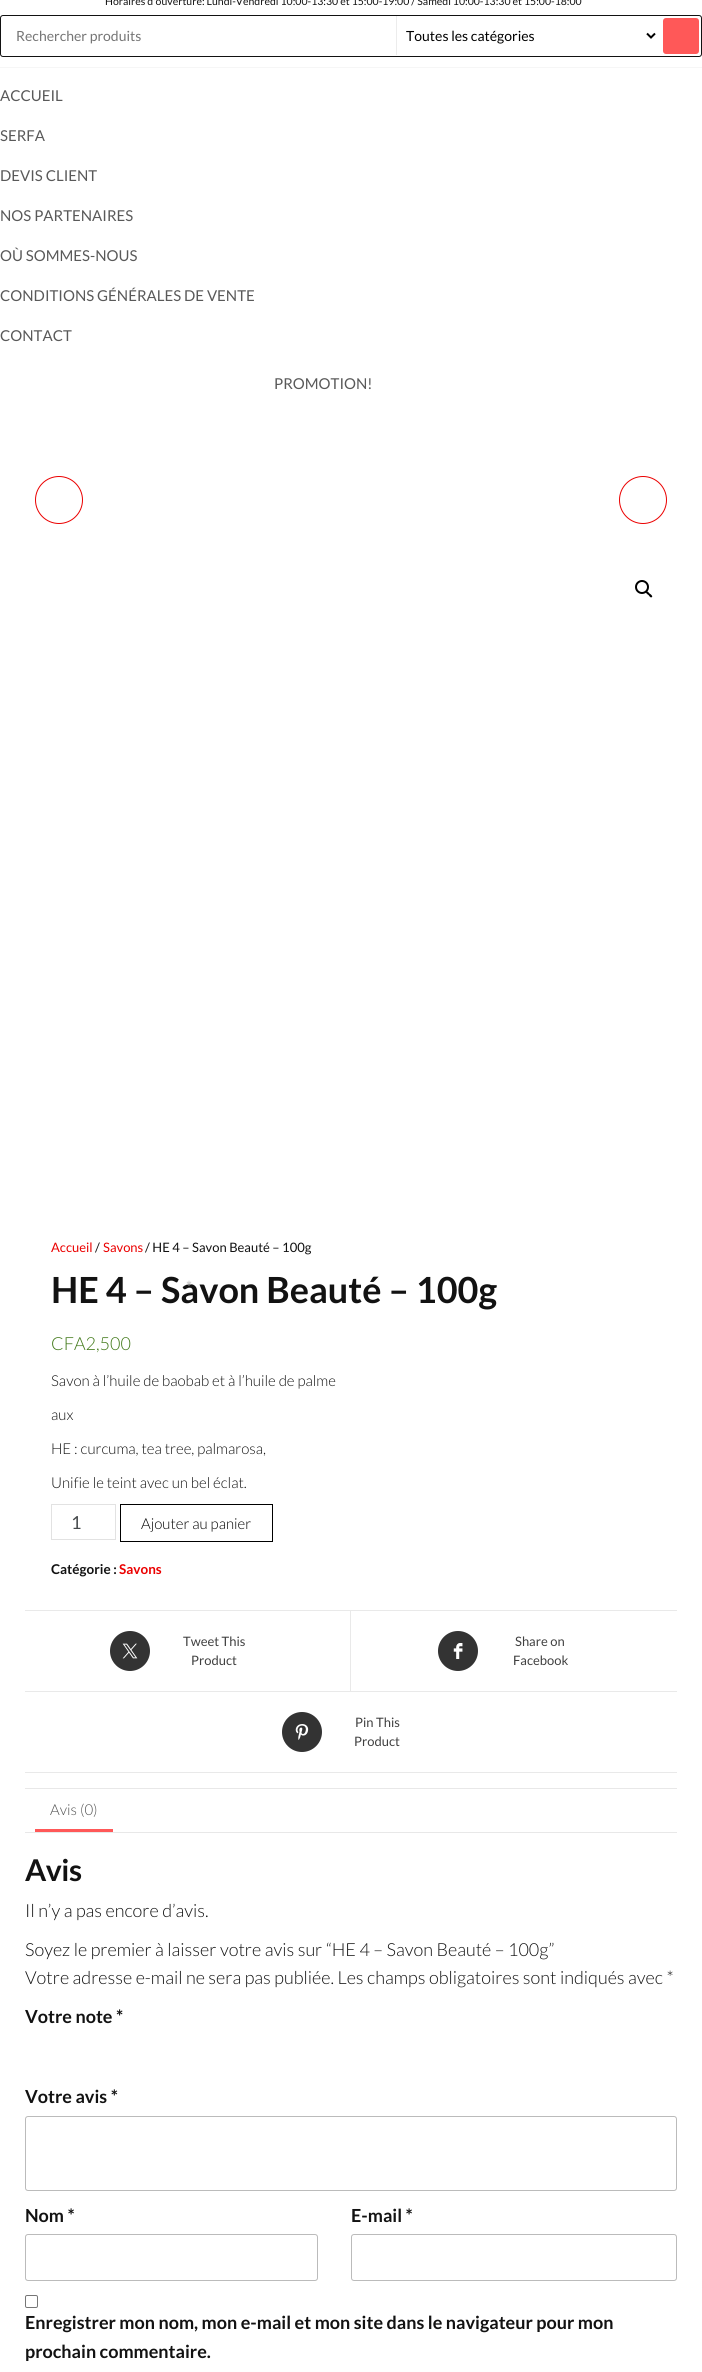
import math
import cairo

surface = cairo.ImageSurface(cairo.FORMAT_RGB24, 702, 2372)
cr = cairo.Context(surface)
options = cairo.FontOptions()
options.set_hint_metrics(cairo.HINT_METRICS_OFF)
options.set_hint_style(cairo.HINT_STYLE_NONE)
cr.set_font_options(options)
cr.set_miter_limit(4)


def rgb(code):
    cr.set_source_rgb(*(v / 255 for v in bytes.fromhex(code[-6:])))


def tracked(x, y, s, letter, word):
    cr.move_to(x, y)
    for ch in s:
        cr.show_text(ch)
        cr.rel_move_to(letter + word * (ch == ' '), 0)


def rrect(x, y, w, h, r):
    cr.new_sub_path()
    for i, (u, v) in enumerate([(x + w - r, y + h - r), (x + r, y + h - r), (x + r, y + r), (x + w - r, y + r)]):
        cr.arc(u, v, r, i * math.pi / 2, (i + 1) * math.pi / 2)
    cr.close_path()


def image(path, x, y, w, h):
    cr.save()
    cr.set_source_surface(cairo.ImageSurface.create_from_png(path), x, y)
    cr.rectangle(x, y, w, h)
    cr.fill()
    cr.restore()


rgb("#ffffff")
cr.paint()
rgb("#f6f6f6")
cr.rectangle(0, 67, 702, 1)
cr.fill()
rrect(0.5, 15.5, 701, 41, 2.5)
rgb("#121212")
cr.set_line_width(1)
cr.stroke()
rgb("#ececec")
cr.rectangle(396, 16, 1, 39)
cr.fill()
cr.new_path()
cr.move_to(647, 33.5)
cr.line_to(651, 37.5)
cr.line_to(655, 33.5)
rgb("#000000")
cr.set_line_width(2)
cr.stroke()
rgb("#ff5858")
rrect(663, 18, 36, 36, 3)
cr.fill()
cr.arc(59, 500, 23.5, 0, 2 * math.pi)
rgb("#eb0000")
cr.set_line_width(1)
cr.stroke()
cr.arc(643, 500, 23.5, 0, 2 * math.pi)
cr.stroke()
cr.arc(642, 587, 6, 0, 2 * math.pi)
rgb("#000000")
cr.set_line_width(2)
cr.stroke()
cr.new_path()
cr.move_to(646, 591.5)
cr.curve_to(647.5, 590.5, 649, 593, 649.5, 593.5)
cr.curve_to(650.5, 594, 653, 596, 652, 597)
cr.curve_to(650.5, 598.5, 649, 595.5, 648.5, 595)
cr.curve_to(647.5, 594.5, 645, 592.5, 646, 591.5)
cr.close_path()
cr.fill()
cr.rectangle(51.5, 1504.5, 64, 35)
rgb("#e2e2e2")
cr.set_line_width(1)
cr.stroke()
cr.rectangle(120.5, 1504.5, 152, 37)
rgb("#000000")
cr.stroke()
for x, y, w, h, color in [
    (25, 1610, 652, 1, "#e9e9e9"),
    (25, 1772, 652, 1, "#e9e9e9"),
    (350, 1611, 1, 81, "#e9e9e9"),
    (25, 1691, 652, 1, "#e9e9e9"),
]:
    rgb(color)
    cr.rectangle(x, y, w, h)
    cr.fill()
rgb("#333333")
cr.arc(130, 1651, 20, 0, 2 * math.pi)
cr.fill()
image("img/1.png", 122, 1643, 16, 16)
cr.arc(458, 1651, 20, 0, 2 * math.pi)
cr.fill()
image("img/2.png", 453, 1643, 10, 16)
cr.arc(302, 1732, 20, 0, 2 * math.pi)
cr.fill()
image("img/3.png", 295, 1724, 14, 16)
for x, y, w, h, color in [
    (25, 1788, 652, 1, "#e8e8e8"),
    (25, 1832, 652, 1, "#e8e8e8"),
    (35, 1829, 78, 3, "#ff5858"),
]:
    rgb(color)
    cr.rectangle(x, y, w, h)
    cr.fill()
rrect(25.5, 2116.5, 651, 74, 2.5)
rgb("#bbbbbb")
cr.stroke()
rrect(25.5, 2234.5, 292, 46, 2.5)
cr.stroke()
rrect(351.5, 2234.5, 325, 46, 2.5)
cr.stroke()
rrect(25.5, 2295.5, 12, 12, 1.5)
rgb("#767676")
cr.stroke()
cr.select_font_face("Lato")
cr.set_font_size(10.5)
rgb("#121212")
cr.move_to(105, 5)
cr.show_text("Horaires d'ouverture: Lundi-Vendredi 10:00-13:30 et 15:00-19:00 / Samedi 10:00-13:30 et 15:00-18:00")
cr.set_font_size(14)
rgb("#757575")
cr.move_to(16, 41)
cr.show_text("Rechercher produits")
rgb("#000000")
cr.move_to(406, 41)
cr.show_text("Toutes les catégories")
cr.set_font_size(15)
rgb("#595959")
for x, y, s in [
    (0, 101, "ACCUEIL"),
    (0, 141, "SERFA"),
    (0, 181, "DEVIS CLIENT"),
    (0, 221, "NOS PARTENAIRES"),
    (0, 261, "OÙ SOMMES-NOUS"),
    (0, 301, "CONDITIONS GÉNÉRALES DE VENTE"),
    (0, 341, "CONTACT"),
    (274, 389, "PROMOTION!"),
]:
    cr.move_to(x, y)
    cr.show_text(s)
cr.set_font_size(13)
rgb("#eb0000")
cr.move_to(51, 1252)
cr.show_text("Accueil")
rgb("#121212")
cr.move_to(95, 1252)
cr.show_text("/")
rgb("#eb0000")
cr.move_to(103, 1252)
cr.show_text("Savons")
rgb("#121212")
cr.move_to(145, 1252)
cr.show_text("/ HE 4 – Savon Beauté – 100g")
cr.select_font_face("Lato", cairo.FONT_SLANT_NORMAL, cairo.FONT_WEIGHT_BOLD)
cr.set_font_size(36)
cr.move_to(51, 1303)
cr.show_text("HE 4 – Savon Beauté – 100g")
cr.select_font_face("Lato Light")
cr.set_font_size(18)
rgb("#417919")
cr.move_to(51, 1350)
cr.show_text("CFA2,500")
cr.set_font_size(15)
rgb("#121212")
for x, y, s in [
    (51, 1386, "Savon à l’huile de baobab et à l’huile de palme"),
    (51, 1420, "aux"),
    (51, 1454, "HE : curcuma, tea tree, palmarosa,"),
    (51, 1488, "Unifie le teint avec un bel éclat."),
]:
    cr.move_to(x, y)
    cr.show_text(s)
cr.select_font_face("Lato")
cr.set_font_size(18)
rgb("#464a4c")
cr.move_to(71, 1529)
cr.show_text("1")
cr.select_font_face("Lato Light")
cr.set_font_size(15)
rgb("#000000")
cr.move_to(141, 1529)
cr.show_text("Ajouter au panier")
cr.select_font_face("Lato", cairo.FONT_SLANT_NORMAL, cairo.FONT_WEIGHT_BOLD)
cr.set_font_size(13.5)
rgb("#121212")
cr.move_to(51, 1574)
cr.show_text("Catégorie :")
rgb("#eb0000")
cr.move_to(119, 1574)
cr.show_text("Savons")
cr.select_font_face("Lato")
cr.set_font_size(13)
rgb("#404040")
for x, y, s in [
    (183, 1646, "Tweet This"),
    (191, 1665, "Product"),
    (515, 1646, "Share on"),
    (513, 1665, "Facebook"),
    (355, 1727, "Pin This"),
    (354, 1746, "Product"),
]:
    cr.move_to(x, y)
    cr.show_text(s)
cr.select_font_face("Lato Light")
cr.set_font_size(15)
rgb("#515151")
cr.move_to(50, 1815)
cr.show_text("Avis (0)")
cr.select_font_face("Lato", cairo.FONT_SLANT_NORMAL, cairo.FONT_WEIGHT_BOLD)
cr.set_font_size(30)
rgb("#121212")
tracked(25, 1881, "Avis", -0.5, 0)
cr.select_font_face("Lato Light")
cr.set_font_size(18)
for x, y, s in [
    (25, 1917, "Il n’y a pas encore d’avis."),
    (25, 1956, "Soyez le premier à laisser votre avis sur “HE 4 – Savon Beauté – 100g”"),
    (25, 1984, "Votre adresse e-mail ne sera pas publiée. Les champs obligatoires sont indiqués avec *"),
]:
    cr.move_to(x, y)
    cr.show_text(s)
cr.select_font_face("Lato", cairo.FONT_SLANT_NORMAL, cairo.FONT_WEIGHT_BOLD)
for x, y, s in [
    (25, 2023, "Votre note *"),
    (25, 2103, "Votre avis *"),
    (25, 2222, "Nom *"),
    (351, 2222, "E-mail *"),
    (25, 2329, "Enregistrer mon nom, mon e-mail et mon site dans le navigateur pour mon"),
    (25, 2358, "prochain commentaire."),
]:
    cr.move_to(x, y)
    cr.show_text(s)
cr.set_font_size(15)
rgb("#cbcbcb")
cr.move_to(186, 1292)
cr.show_text("*")
surface.write_to_png("page.png")
